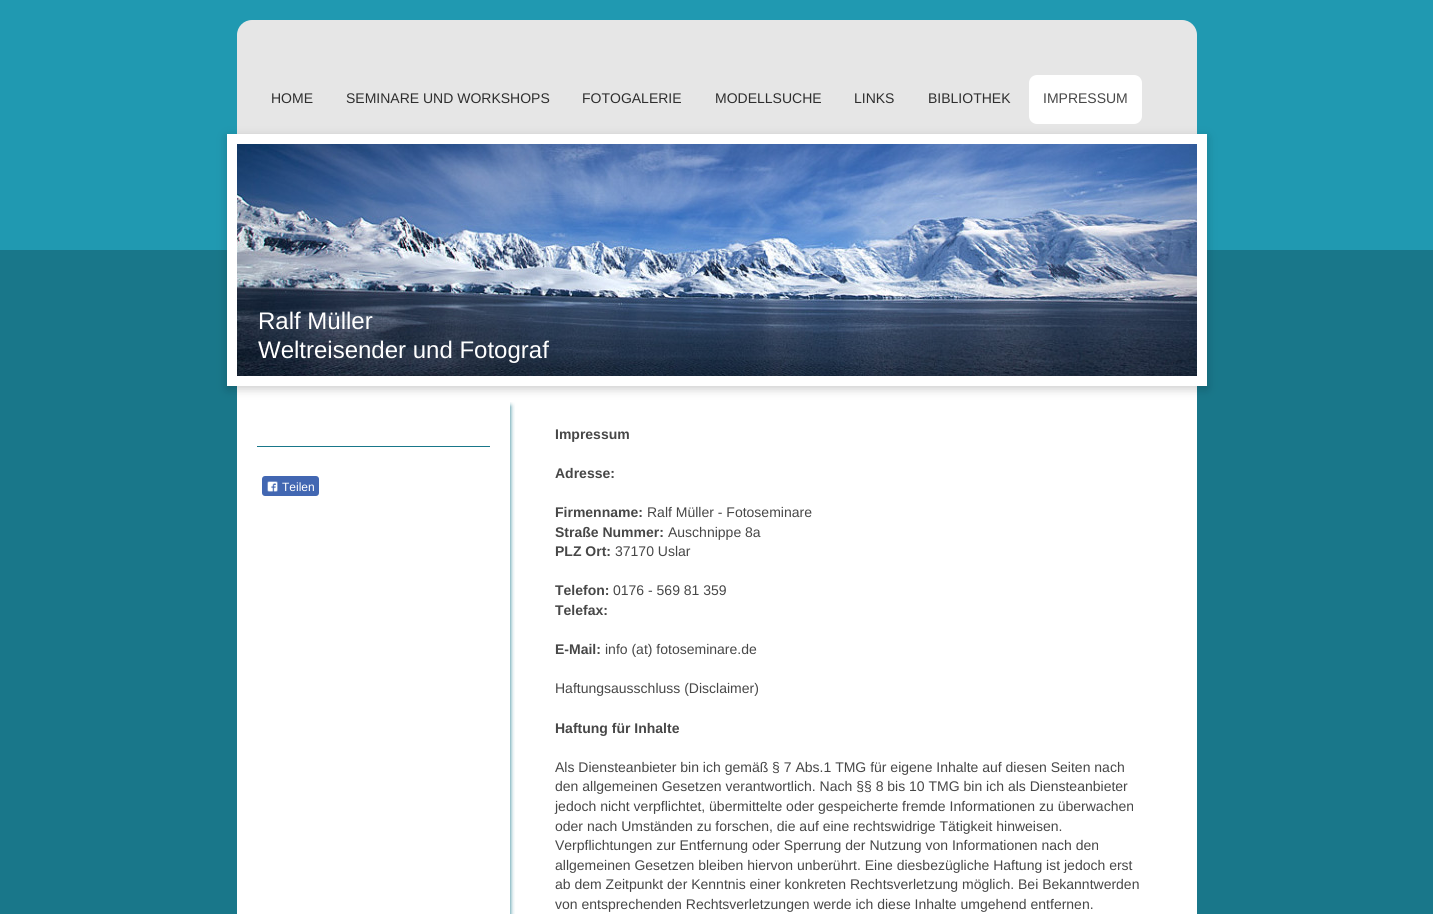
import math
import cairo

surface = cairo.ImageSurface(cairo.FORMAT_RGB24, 1433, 914)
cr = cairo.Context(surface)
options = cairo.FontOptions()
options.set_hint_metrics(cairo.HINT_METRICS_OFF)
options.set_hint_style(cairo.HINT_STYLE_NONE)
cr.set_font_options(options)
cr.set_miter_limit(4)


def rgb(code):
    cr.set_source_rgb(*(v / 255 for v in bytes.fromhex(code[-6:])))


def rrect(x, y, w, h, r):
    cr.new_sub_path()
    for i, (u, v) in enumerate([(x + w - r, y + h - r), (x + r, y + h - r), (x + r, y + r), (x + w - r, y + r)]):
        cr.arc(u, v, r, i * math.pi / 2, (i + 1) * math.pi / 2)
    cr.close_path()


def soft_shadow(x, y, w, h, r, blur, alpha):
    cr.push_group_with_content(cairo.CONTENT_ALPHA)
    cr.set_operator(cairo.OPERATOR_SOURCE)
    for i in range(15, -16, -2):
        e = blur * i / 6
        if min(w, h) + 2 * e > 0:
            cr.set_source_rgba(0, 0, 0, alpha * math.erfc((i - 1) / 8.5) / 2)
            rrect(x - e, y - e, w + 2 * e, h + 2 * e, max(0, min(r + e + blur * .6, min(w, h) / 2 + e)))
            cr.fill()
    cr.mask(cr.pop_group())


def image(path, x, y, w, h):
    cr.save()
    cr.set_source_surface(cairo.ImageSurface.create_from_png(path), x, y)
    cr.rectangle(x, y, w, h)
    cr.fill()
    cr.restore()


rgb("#19778a")
cr.paint()
rgb("#2099b1")
cr.rectangle(0, 0, 1433, 250)
cr.fill()
rgb("#e6e6e6")
rrect(237, 20, 960, 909, 15)
cr.fill()
rgb("#ffffff")
rrect(1029, 75, 113, 49, 8)
cr.fill()
cr.rectangle(237, 386, 960, 528)
cr.fill()
rgb("#000000")
soft_shadow(227, 137, 980, 252, 0, 5, 0.2)
cr.rectangle(232, 139, 970, 242)
rgb("#ffffff")
cr.set_line_width(10)
cr.stroke()
image("img/1.png", 237, 144, 960, 232)
cr.save()
cr.rectangle(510, 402, 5, 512)
cr.clip()
rgb("#19778a")
soft_shadow(277, 406, 233, 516, 0, 2.5, 1)
cr.restore()
rgb("#19778a")
cr.rectangle(257, 446, 233, 1)
cr.fill()
rgb("#4267b2")
rrect(262, 476, 57, 20, 3)
cr.fill()
image("img/2.png", 267, 481, 11, 11)
cr.select_font_face("Liberation Sans")
cr.set_font_size(14)
rgb("#2e2e2e")
for x, y, s in [
    (271, 103, "HOME"),
    (346, 103, "SEMINARE UND WORKSHOPS"),
    (582, 103, "FOTOGALERIE"),
    (715, 103, "MODELLSUCHE"),
    (854, 103, "LINKS"),
    (928, 103, "BIBLIOTHEK"),
]:
    cr.move_to(x, y)
    cr.show_text(s)
rgb("#474747")
cr.move_to(1043, 103)
cr.show_text("IMPRESSUM")
cr.set_font_size(24)
rgb("#ffffff")
cr.move_to(258, 329)
cr.show_text("Ralf Müller")
cr.move_to(258, 358)
cr.show_text("Weltreisender und Fotograf")
cr.select_font_face("Liberation Sans", cairo.FONT_SLANT_NORMAL, cairo.FONT_WEIGHT_BOLD)
cr.set_font_size(14)
rgb("#474747")
for x, y, s in [
    (555, 439, "Impressum"),
    (555, 478, "Adresse:"),
    (555, 517, "Firmenname:"),
]:
    cr.move_to(x, y)
    cr.show_text(s)
cr.select_font_face("Liberation Sans")
cr.move_to(647, 517)
cr.show_text("Ralf Müller - Fotoseminare")
cr.select_font_face("Liberation Sans", cairo.FONT_SLANT_NORMAL, cairo.FONT_WEIGHT_BOLD)
cr.move_to(555, 537)
cr.show_text("Straße Nummer:")
cr.select_font_face("Liberation Sans")
cr.move_to(668, 537)
cr.show_text("Auschnippe 8a")
cr.select_font_face("Liberation Sans", cairo.FONT_SLANT_NORMAL, cairo.FONT_WEIGHT_BOLD)
cr.move_to(555, 556)
cr.show_text("PLZ Ort:")
cr.select_font_face("Liberation Sans")
cr.move_to(615, 556)
cr.show_text("37170 Uslar")
cr.select_font_face("Liberation Sans", cairo.FONT_SLANT_NORMAL, cairo.FONT_WEIGHT_BOLD)
cr.move_to(555, 595)
cr.show_text("Telefon:")
cr.select_font_face("Liberation Sans")
cr.move_to(613, 595)
cr.show_text("0176 - 569 81 359")
cr.select_font_face("Liberation Sans", cairo.FONT_SLANT_NORMAL, cairo.FONT_WEIGHT_BOLD)
cr.move_to(555, 615)
cr.show_text("Telefax:")
cr.move_to(555, 654)
cr.show_text("E-Mail:")
cr.select_font_face("Liberation Sans")
cr.move_to(605, 654)
cr.show_text("info (at) fotoseminare.de")
cr.move_to(555, 693)
cr.show_text("Haftungsausschluss (Disclaimer)")
cr.select_font_face("Liberation Sans", cairo.FONT_SLANT_NORMAL, cairo.FONT_WEIGHT_BOLD)
cr.move_to(555, 733)
cr.show_text("Haftung für Inhalte")
cr.select_font_face("Liberation Sans")
for x, y, s in [
    (555, 772, "Als Diensteanbieter bin ich gemäß § 7 Abs.1 TMG für eigene Inhalte auf diesen Seiten nach"),
    (555, 791, "den allgemeinen Gesetzen verantwortlich. Nach §§ 8 bis 10 TMG bin ich als Diensteanbieter"),
    (555, 811, "jedoch nicht verpflichtet, übermittelte oder gespeicherte fremde Informationen zu überwachen"),
    (555, 831, "oder nach Umständen zu forschen, die auf eine rechtswidrige Tätigkeit hinweisen."),
    (555, 850, "Verpflichtungen zur Entfernung oder Sperrung der Nutzung von Informationen nach den"),
    (555, 870, "allgemeinen Gesetzen bleiben hiervon unberührt. Eine diesbezügliche Haftung ist jedoch erst"),
    (555, 889, "ab dem Zeitpunkt der Kenntnis einer konkreten Rechtsverletzung möglich. Bei Bekanntwerden"),
    (555, 909, "von entsprechenden Rechtsverletzungen werde ich diese Inhalte umgehend entfernen."),
]:
    cr.move_to(x, y)
    cr.show_text(s)
cr.set_font_size(12)
rgb("#ffffff")
cr.move_to(282, 491)
cr.show_text("Teilen")
surface.write_to_png("page.png")
